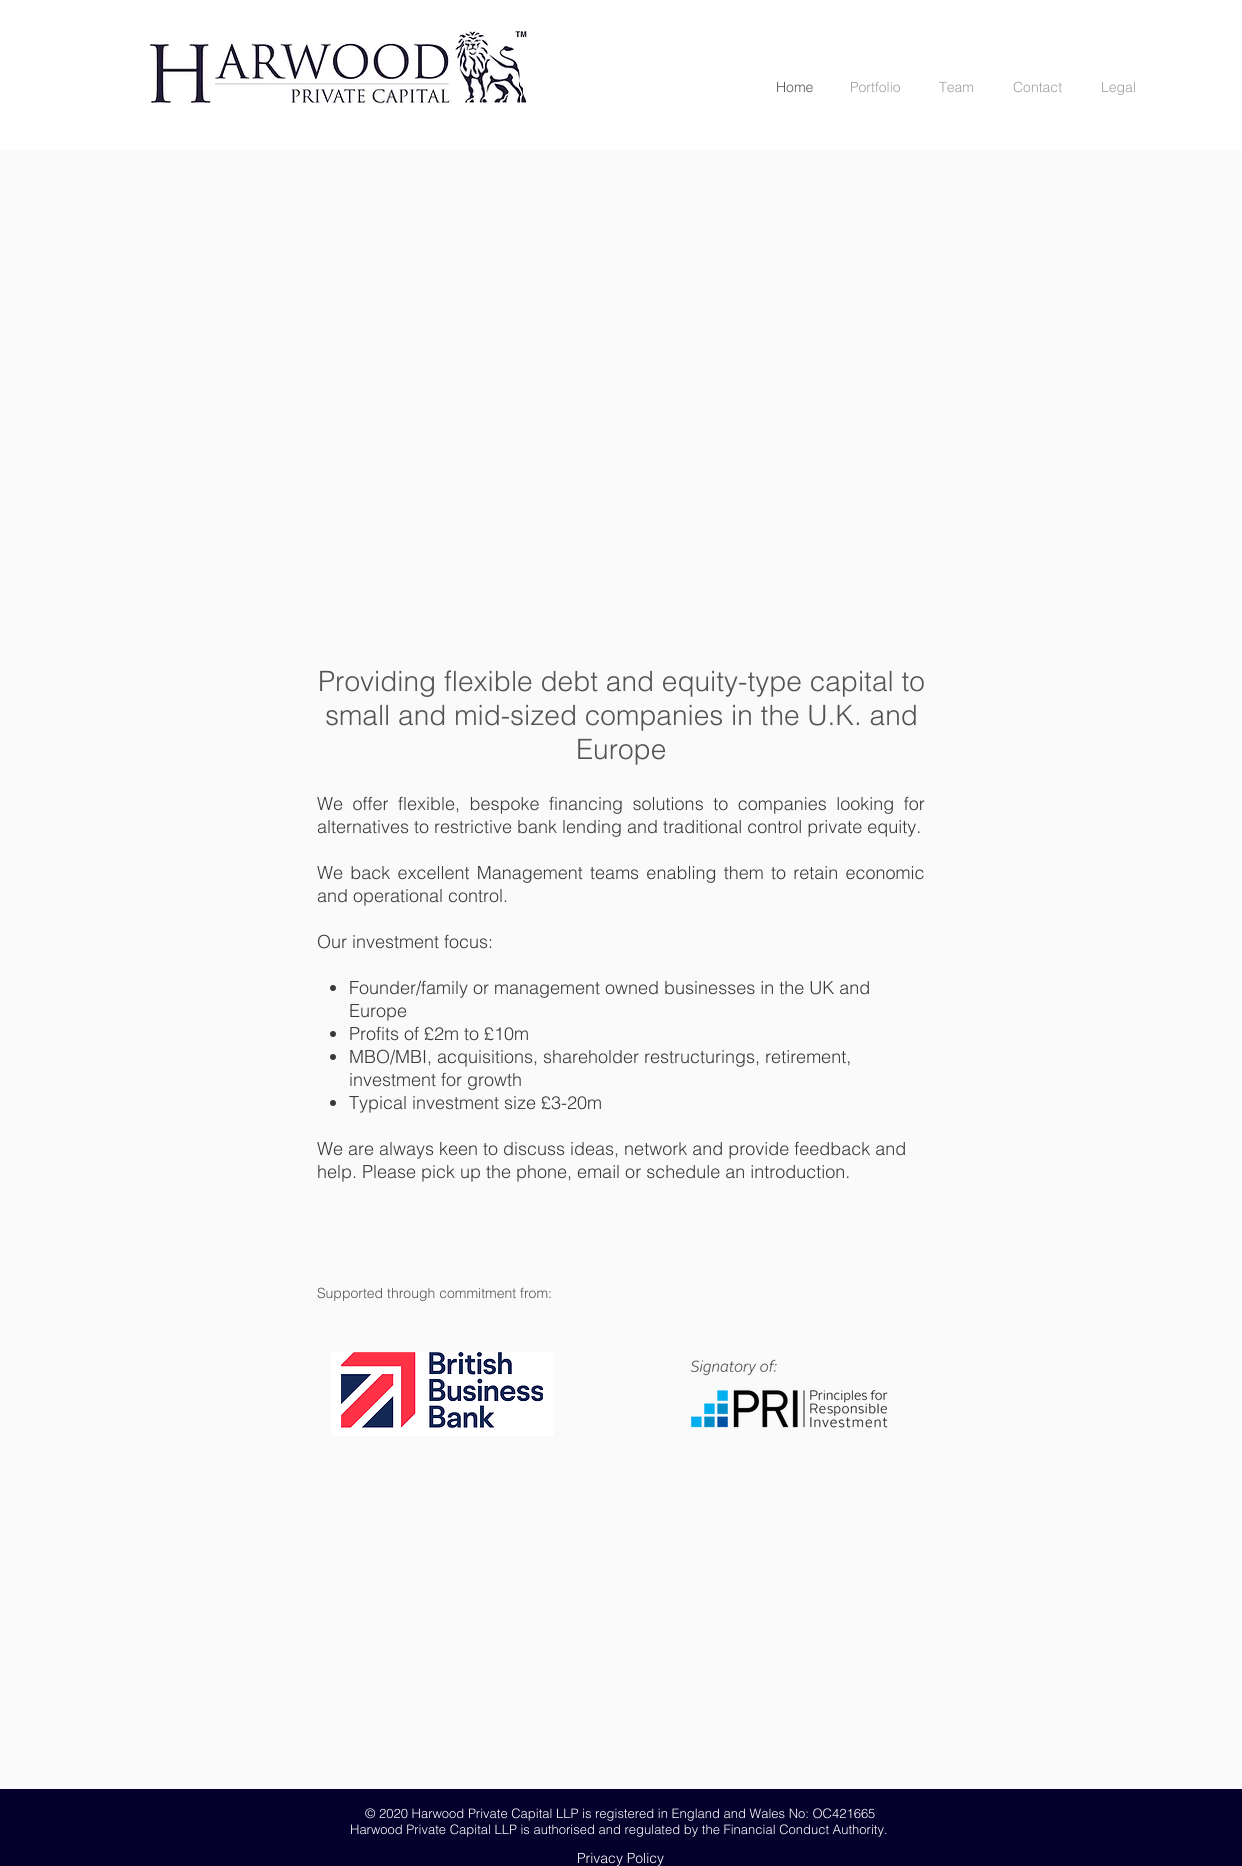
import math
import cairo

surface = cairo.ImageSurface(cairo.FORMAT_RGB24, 1242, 1866)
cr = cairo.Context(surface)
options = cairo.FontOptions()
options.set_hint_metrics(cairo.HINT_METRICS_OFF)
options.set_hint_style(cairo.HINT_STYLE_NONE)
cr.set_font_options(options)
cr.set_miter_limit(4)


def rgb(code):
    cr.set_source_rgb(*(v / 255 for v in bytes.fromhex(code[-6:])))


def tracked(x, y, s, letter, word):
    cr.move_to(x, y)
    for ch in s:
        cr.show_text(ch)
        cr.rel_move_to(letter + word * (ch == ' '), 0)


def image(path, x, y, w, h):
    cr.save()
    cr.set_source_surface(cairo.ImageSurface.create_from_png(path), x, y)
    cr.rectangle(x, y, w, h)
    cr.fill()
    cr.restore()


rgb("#fafafa")
cr.paint()
rgb("#ffffff")
cr.rectangle(0, 0, 1242, 150)
cr.fill()
image("img/1.png", 150, 31, 377, 76)
rgb("#383838")
cr.arc(333, 988, 3, 0, 2 * math.pi)
cr.fill()
cr.arc(333, 1034, 3, 0, 2 * math.pi)
cr.fill()
cr.arc(333, 1057, 3, 0, 2 * math.pi)
cr.fill()
cr.arc(333, 1103, 3, 0, 2 * math.pi)
cr.fill()
image("img/2.png", 331, 1352, 223, 84)
image("img/3.png", 341, 1352, 202, 76)
image("img/4.png", 690, 1359, 198, 69)
rgb("#04002b")
cr.rectangle(0, 1789, 1242, 77)
cr.fill()
cr.select_font_face("helvetica Light")
cr.set_font_size(14)
rgb("#535353")
cr.move_to(776, 92)
cr.show_text("Home")
rgb("#9e9e9e")
for x, y, s in [
    (850, 92, "Portfolio"),
    (939, 92, "Team"),
    (1013, 92, "Contact"),
    (1101, 92, "Legal"),
]:
    cr.move_to(x, y)
    cr.show_text(s)
cr.set_font_size(28)
rgb("#535353")
for x, y, s in [
    (318, 691, "Providing flexible debt and equity-type capital to"),
    (325, 725, "small and mid-sized companies in the U.K. and"),
    (576, 759, "Europe"),
]:
    cr.move_to(x, y)
    cr.show_text(s)
cr.set_font_size(18)
rgb("#383838")
tracked(317, 810, "We offer flexible, bespoke financing solutions to companies looking for", 0, 4.5)
cr.move_to(317, 833)
cr.show_text("alternatives to restrictive bank lending and traditional control private equity.")
tracked(317, 879, "We back excellent Management teams enabling them to retain economic", 0, 2.25)
for x, y, s in [
    (317, 902, "and operational control."),
    (317, 948, "Our investment focus:"),
    (349, 994, "Founder/family or management owned businesses in the UK and"),
    (349, 1017, "Europe"),
    (349, 1040, "Profits of £2m to £10m"),
    (349, 1063, "MBO/MBI, acquisitions, shareholder restructurings, retirement,"),
    (349, 1086, "investment for growth"),
    (349, 1109, "Typical investment size £3-20m"),
    (317, 1155, "We are always keen to discuss ideas, network and provide feedback and"),
    (317, 1178, "help. Please pick up the phone, email or schedule an introduction."),
]:
    cr.move_to(x, y)
    cr.show_text(s)
cr.set_font_size(14)
rgb("#535353")
cr.move_to(317, 1298)
cr.show_text("Supported through commitment from:")
cr.set_font_size(13)
rgb("#ffffff")
cr.move_to(365, 1818)
cr.show_text("© 2020 Harwood Private Capital LLP is registered in England and Wales No: OC421665")
cr.move_to(350, 1834)
cr.show_text("Harwood Private Capital LLP is authorised and regulated by the Financial Conduct Authority.")
cr.set_font_size(14)
cr.move_to(577, 1863)
cr.show_text("Privacy Policy")
surface.write_to_png("page.png")
